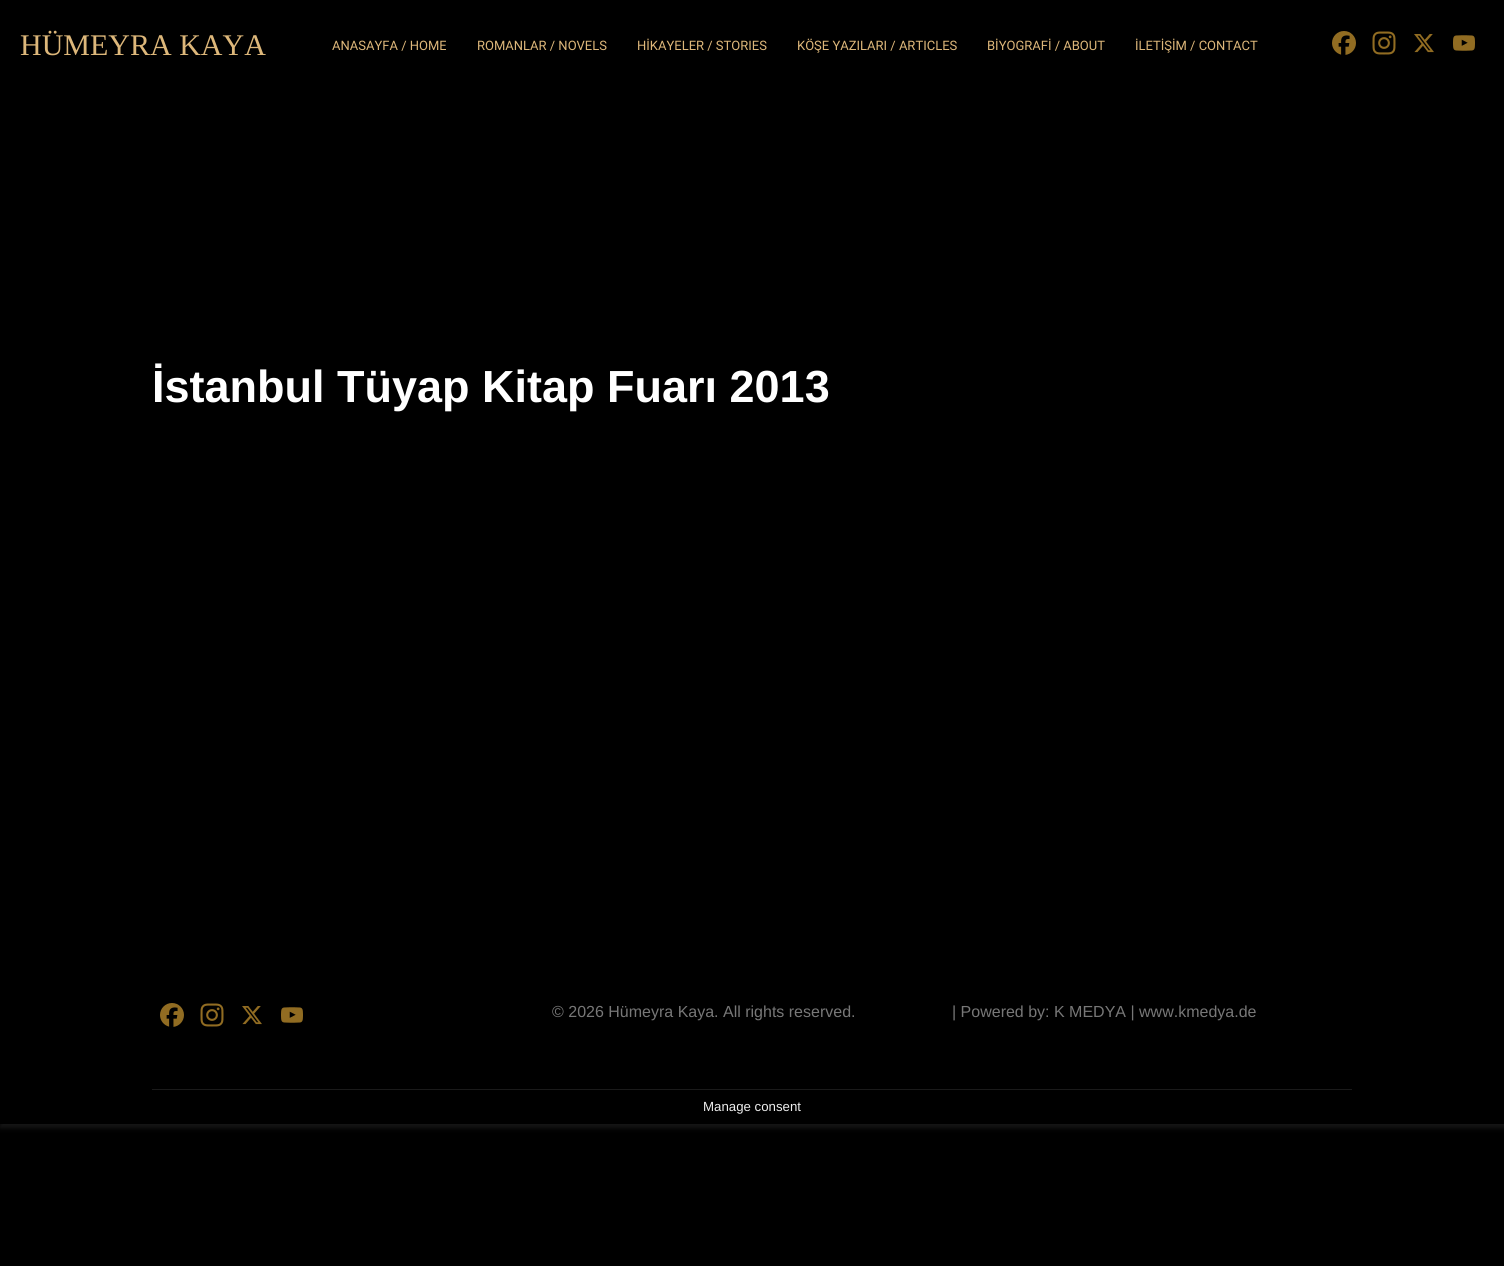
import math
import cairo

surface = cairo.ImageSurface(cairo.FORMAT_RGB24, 1504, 1266)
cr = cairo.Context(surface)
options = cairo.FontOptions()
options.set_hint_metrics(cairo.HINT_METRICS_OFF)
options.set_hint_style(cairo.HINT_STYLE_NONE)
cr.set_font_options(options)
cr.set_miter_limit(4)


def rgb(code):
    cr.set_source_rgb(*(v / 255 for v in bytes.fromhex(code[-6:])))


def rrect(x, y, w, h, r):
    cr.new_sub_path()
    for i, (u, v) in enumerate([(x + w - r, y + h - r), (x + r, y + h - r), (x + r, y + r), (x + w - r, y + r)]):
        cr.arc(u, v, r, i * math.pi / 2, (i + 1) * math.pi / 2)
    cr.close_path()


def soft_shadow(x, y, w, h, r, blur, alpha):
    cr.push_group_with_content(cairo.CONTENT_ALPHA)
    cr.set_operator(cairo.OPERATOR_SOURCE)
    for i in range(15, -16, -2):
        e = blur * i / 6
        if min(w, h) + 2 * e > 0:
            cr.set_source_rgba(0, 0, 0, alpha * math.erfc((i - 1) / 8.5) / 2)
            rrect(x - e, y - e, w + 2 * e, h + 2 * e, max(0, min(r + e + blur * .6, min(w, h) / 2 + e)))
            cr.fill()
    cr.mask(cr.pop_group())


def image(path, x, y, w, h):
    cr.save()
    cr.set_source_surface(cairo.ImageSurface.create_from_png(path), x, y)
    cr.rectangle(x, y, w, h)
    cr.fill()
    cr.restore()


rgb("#000000")
cr.paint()
image("img/1.png", 1332, 31, 24, 24)
image("img/2.png", 1372, 31, 24, 24)
image("img/3.png", 1414, 34, 20, 19)
image("img/4.png", 1453, 35, 22, 16)
cr.save()
cr.rectangle(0, 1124, 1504, 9)
cr.clip()
rgb("#161616")
soft_shadow(0, 1090, 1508, 38, 0, 2.5, 1)
cr.restore()
rgb("#000000")
cr.rectangle(0, 1087, 1504, 3)
cr.fill()
image("img/1.png", 160, 1003, 24, 24)
image("img/2.png", 200, 1003, 24, 24)
image("img/3.png", 242, 1006, 20, 19)
image("img/4.png", 281, 1007, 22, 16)
rgb("#1a1a1a")
cr.rectangle(152, 1089, 1200, 1)
cr.fill()
cr.select_font_face("Liberation Serif")
cr.set_font_size(30)
rgb("#ddb77a")
cr.move_to(20, 55)
cr.show_text("HÜMEYRA KAYA")
cr.select_font_face("Roboto")
cr.set_font_size(13)
for x, y, s in [
    (332, 50, "ANASAYFA / HOME"),
    (477, 50, "ROMANLAR / NOVELS"),
    (637, 50, "HİKAYELER / STORIES"),
    (797, 50, "KÖŞE YAZILARI / ARTICLES"),
    (987, 50, "BİYOGRAFİ / ABOUT"),
    (1135, 50, "İLETİŞİM / CONTACT"),
]:
    cr.move_to(x, y)
    cr.show_text(s)
cr.select_font_face("Liberation Sans", cairo.FONT_SLANT_NORMAL, cairo.FONT_WEIGHT_BOLD)
cr.set_font_size(45)
rgb("#ffffff")
cr.move_to(152, 402)
cr.show_text("İstanbul Tüyap Kitap Fuarı 2013")
cr.select_font_face("Liberation Sans")
cr.set_font_size(16)
rgb("#777777")
cr.move_to(552, 1017)
cr.show_text("© 2026 Hümeyra Kaya. All rights reserved.")
cr.move_to(952, 1017)
cr.show_text("| Powered by: K MEDYA | www.kmedya.de")
cr.set_font_size(13.25)
rgb("#eeeeee")
cr.move_to(703, 1111)
cr.show_text("Manage consent")
surface.write_to_png("page.png")
